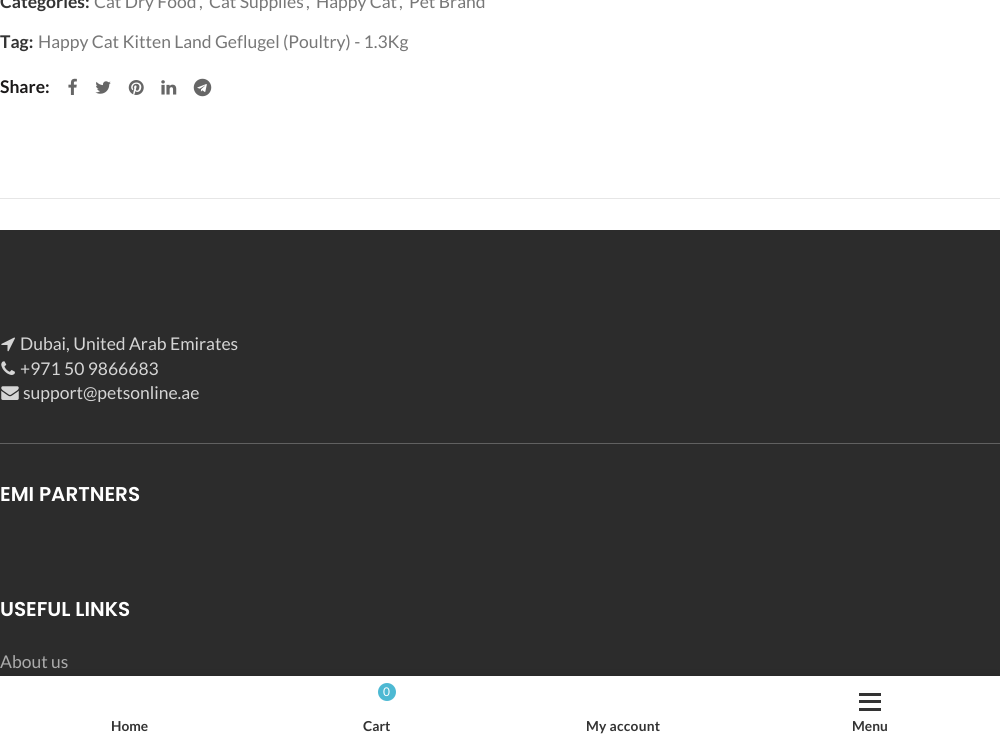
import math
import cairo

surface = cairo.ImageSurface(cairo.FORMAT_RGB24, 1000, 744)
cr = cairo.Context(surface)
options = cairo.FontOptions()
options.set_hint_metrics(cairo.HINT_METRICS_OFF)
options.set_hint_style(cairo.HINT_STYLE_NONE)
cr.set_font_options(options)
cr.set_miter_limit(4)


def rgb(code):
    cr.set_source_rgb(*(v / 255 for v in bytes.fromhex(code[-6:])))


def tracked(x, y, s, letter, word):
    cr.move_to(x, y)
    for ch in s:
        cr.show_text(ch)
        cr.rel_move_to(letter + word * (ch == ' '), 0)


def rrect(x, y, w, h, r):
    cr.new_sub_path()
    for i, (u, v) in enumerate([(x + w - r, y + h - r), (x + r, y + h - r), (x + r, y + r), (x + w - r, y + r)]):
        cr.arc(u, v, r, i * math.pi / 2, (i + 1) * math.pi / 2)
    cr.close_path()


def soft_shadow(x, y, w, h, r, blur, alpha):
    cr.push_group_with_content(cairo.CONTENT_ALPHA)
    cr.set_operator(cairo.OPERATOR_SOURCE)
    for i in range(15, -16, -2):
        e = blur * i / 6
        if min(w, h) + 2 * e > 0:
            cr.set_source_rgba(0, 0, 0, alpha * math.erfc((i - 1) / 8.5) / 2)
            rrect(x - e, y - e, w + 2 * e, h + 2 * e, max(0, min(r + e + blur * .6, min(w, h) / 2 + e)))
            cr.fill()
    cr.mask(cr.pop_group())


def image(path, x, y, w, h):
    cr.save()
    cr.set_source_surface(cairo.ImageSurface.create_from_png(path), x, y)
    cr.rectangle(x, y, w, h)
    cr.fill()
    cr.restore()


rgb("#ffffff")
cr.paint()
image("img/1.png", 68, 78, 9, 17)
image("img/2.png", 95, 81, 16, 13)
image("img/3.png", 128, 80, 16, 15)
image("img/4.png", 161, 80, 16, 15)
image("img/5.png", 193, 78, 19, 19)
for x, y, w, h, color in [
    (0, 198, 1000, 1, "#e6e6e6"),
    (0, 230, 1000, 446, "#2c2c2c"),
    (0, 443, 1000, 1, "#616161"),
]:
    rgb(color)
    cr.rectangle(x, y, w, h)
    cr.fill()
image("img/6.png", 1, 337, 14, 15)
image("img/7.png", 1, 361, 14, 14)
image("img/8.png", 1, 386, 18, 14)
rgb("#000000")
soft_shadow(0, 676, 1000, 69, 0, 5.5, 0.12)
rgb("#ffffff")
cr.rectangle(0, 676, 1000, 68)
cr.fill()
rgb("#4db9d3")
cr.arc(387, 692, 9, 0, 2 * math.pi)
cr.fill()
for x, y, w, h, color in [
    (859, 700, 22, 3, "#333333"),
    (859, 693, 22, 3, "#333333"),
    (859, 708, 22, 3, "#333333"),
]:
    rgb(color)
    cr.rectangle(x, y, w, h)
    cr.fill()
cr.select_font_face("Lato", cairo.FONT_SLANT_NORMAL, cairo.FONT_WEIGHT_BOLD)
cr.set_font_size(17.5)
cr.move_to(0, 8)
cr.show_text("Categories:")
cr.select_font_face("Lato")
rgb("#777777")
for x, y, s in [
    (94, 8, "Cat Dry Food"),
    (199, 8, ","),
    (209, 8, "Cat Supplies"),
    (306, 8, ","),
    (316, 8, "Happy Cat"),
    (399, 8, ","),
    (409, 8, "Pet Brand"),
]:
    cr.move_to(x, y)
    cr.show_text(s)
cr.select_font_face("Lato", cairo.FONT_SLANT_NORMAL, cairo.FONT_WEIGHT_BOLD)
rgb("#333333")
cr.move_to(0, 48)
cr.show_text("Tag:")
cr.select_font_face("Lato")
rgb("#777777")
cr.move_to(38, 48)
cr.show_text("Happy Cat Kitten Land Geflugel (Poultry) - 1.3Kg")
cr.select_font_face("Lato", cairo.FONT_SLANT_NORMAL, cairo.FONT_WEIGHT_BOLD)
rgb("#1b1919")
cr.move_to(0, 93)
cr.show_text("Share:")
cr.select_font_face("Lato")
rgb("#d5d5d5")
for x, y, s in [
    (20, 350, "Dubai, United Arab Emirates"),
    (20, 375, "+971 50 9866683"),
    (23, 399, "support@petsonline.ae"),
]:
    cr.move_to(x, y)
    cr.show_text(s)
cr.select_font_face("Poppins SemiBold")
cr.set_font_size(20)
rgb("#ffffff")
cr.move_to(0, 501)
cr.show_text("EMI PARTNERS")
cr.move_to(0, 616)
cr.show_text("USEFUL LINKS")
cr.select_font_face("Lato")
cr.set_font_size(17.5)
rgb("#ababab")
cr.move_to(0, 668)
cr.show_text("About us")
cr.select_font_face("Lato", cairo.FONT_SLANT_NORMAL, cairo.FONT_WEIGHT_BOLD)
cr.set_font_size(13.75)
rgb("#333333")
cr.move_to(111, 731)
cr.show_text("Home")
cr.select_font_face("Lato")
cr.set_font_size(12)
rgb("#ffffff")
cr.move_to(383, 696)
cr.show_text("0")
cr.select_font_face("Lato", cairo.FONT_SLANT_NORMAL, cairo.FONT_WEIGHT_BOLD)
cr.set_font_size(13.75)
rgb("#333333")
cr.move_to(363, 731)
cr.show_text("Cart")
tracked(586, 731, "My account", 0.25, 0)
cr.move_to(852, 731)
cr.show_text("Menu")
surface.write_to_png("page.png")
